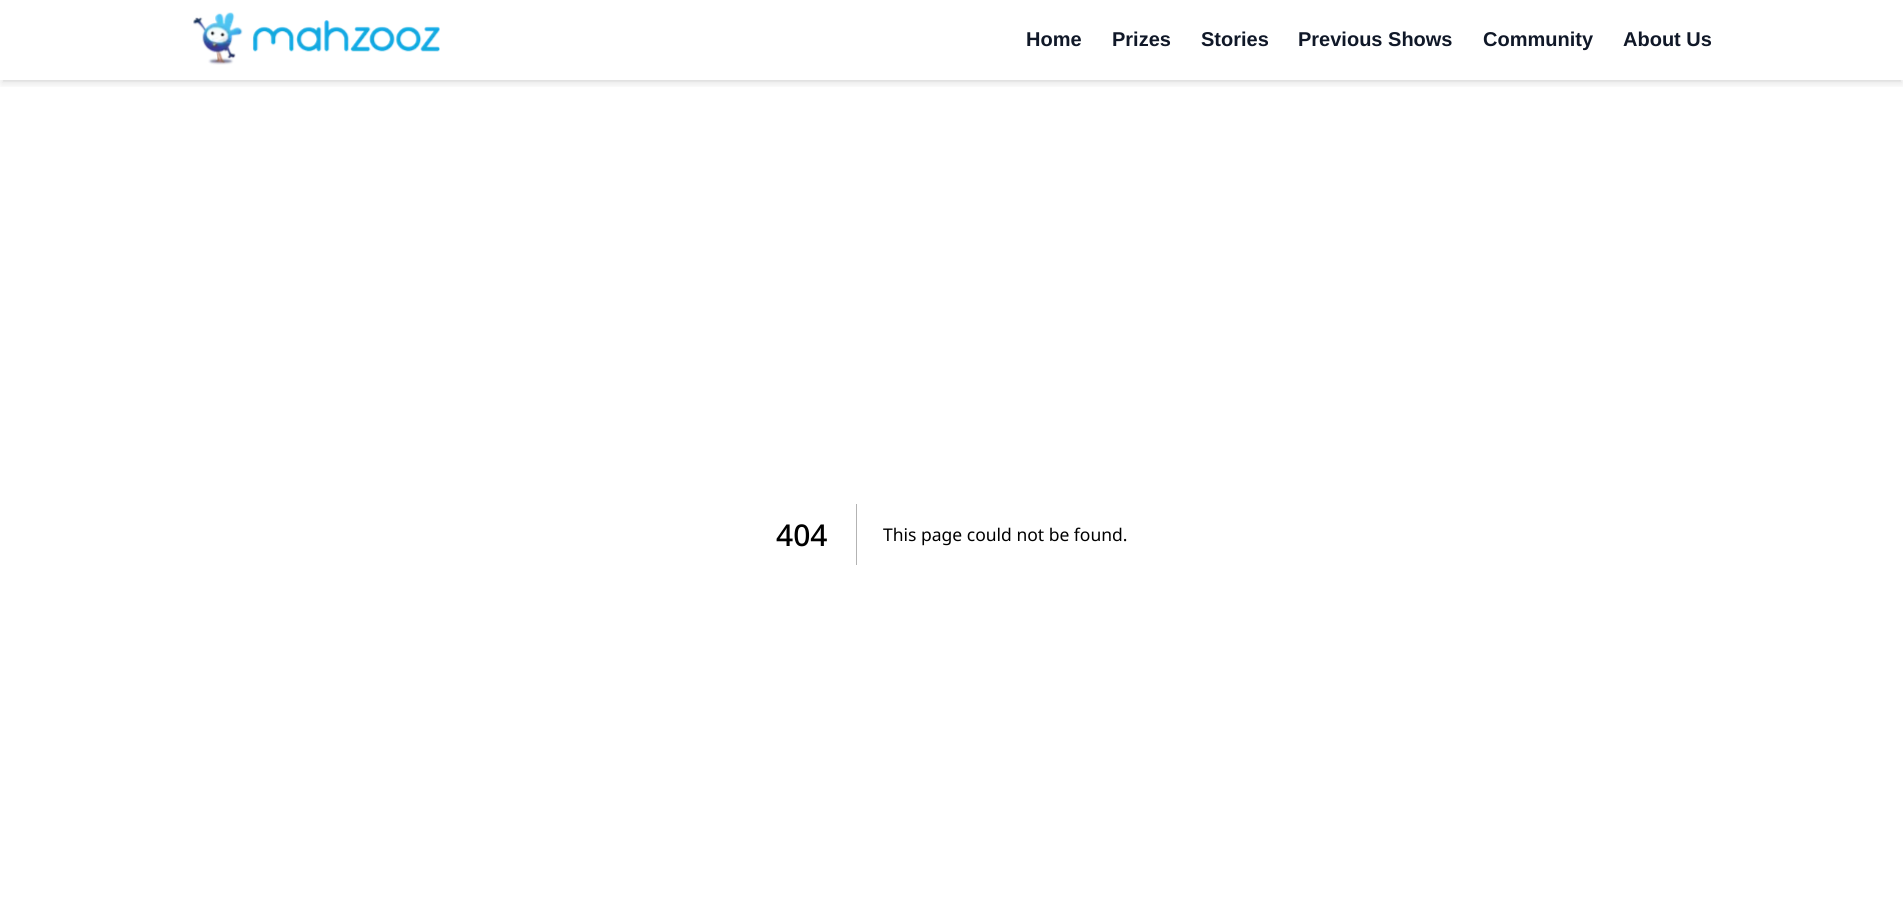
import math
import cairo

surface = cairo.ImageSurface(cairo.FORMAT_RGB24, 1903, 907)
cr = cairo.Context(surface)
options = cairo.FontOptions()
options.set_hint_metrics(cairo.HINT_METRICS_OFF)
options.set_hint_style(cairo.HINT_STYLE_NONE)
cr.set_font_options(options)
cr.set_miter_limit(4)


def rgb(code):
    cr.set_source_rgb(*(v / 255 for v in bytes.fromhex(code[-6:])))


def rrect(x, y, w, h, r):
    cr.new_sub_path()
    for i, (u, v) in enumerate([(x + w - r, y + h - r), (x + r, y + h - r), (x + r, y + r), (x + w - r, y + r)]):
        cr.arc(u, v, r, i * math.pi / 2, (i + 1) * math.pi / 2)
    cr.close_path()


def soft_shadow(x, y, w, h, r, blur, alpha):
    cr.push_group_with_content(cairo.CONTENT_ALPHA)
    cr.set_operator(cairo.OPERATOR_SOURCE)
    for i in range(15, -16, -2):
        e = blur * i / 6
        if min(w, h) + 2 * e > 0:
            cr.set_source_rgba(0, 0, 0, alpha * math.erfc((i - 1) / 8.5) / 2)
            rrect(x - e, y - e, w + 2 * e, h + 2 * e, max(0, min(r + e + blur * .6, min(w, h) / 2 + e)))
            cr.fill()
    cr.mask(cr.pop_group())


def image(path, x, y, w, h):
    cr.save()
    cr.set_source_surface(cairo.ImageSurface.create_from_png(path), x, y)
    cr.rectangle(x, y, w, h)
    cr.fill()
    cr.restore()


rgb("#ffffff")
cr.paint()
cr.save()
cr.rectangle(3, 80, 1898, 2)
cr.clip()
rgb("#000000")
soft_shadow(3, 5, 1898, 75, 0, 2.5, 0.1)
cr.restore()
cr.save()
cr.rectangle(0, 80, 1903, 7)
cr.clip()
rgb("#000000")
soft_shadow(1, 6, 1902, 78, 0, 4, 0.1)
cr.restore()
image("img/1.png", 193, 12, 50, 53)
image("img/2.png", 252, 20, 188, 32)
rgb("#b3b3b3")
cr.rectangle(856, 504, 1, 61)
cr.fill()
cr.select_font_face("Liberation Sans", cairo.FONT_SLANT_NORMAL, cairo.FONT_WEIGHT_BOLD)
cr.set_font_size(20)
rgb("#101828")
for x, y, s in [
    (1026, 46, "Home"),
    (1112, 46, "Prizes"),
    (1201, 46, "Stories"),
    (1298, 46, "Previous Shows"),
    (1483, 46, "Community"),
    (1623, 46, "About Us"),
]:
    cr.move_to(x, y)
    cr.show_text(s)
cr.select_font_face("Noto Sans Medium")
cr.set_font_size(30)
rgb("#000000")
cr.move_to(776, 546)
cr.show_text("404")
cr.select_font_face("Noto Sans")
cr.set_font_size(17.5)
cr.move_to(883, 541)
cr.show_text("This page could not be found.")
surface.write_to_png("page.png")
